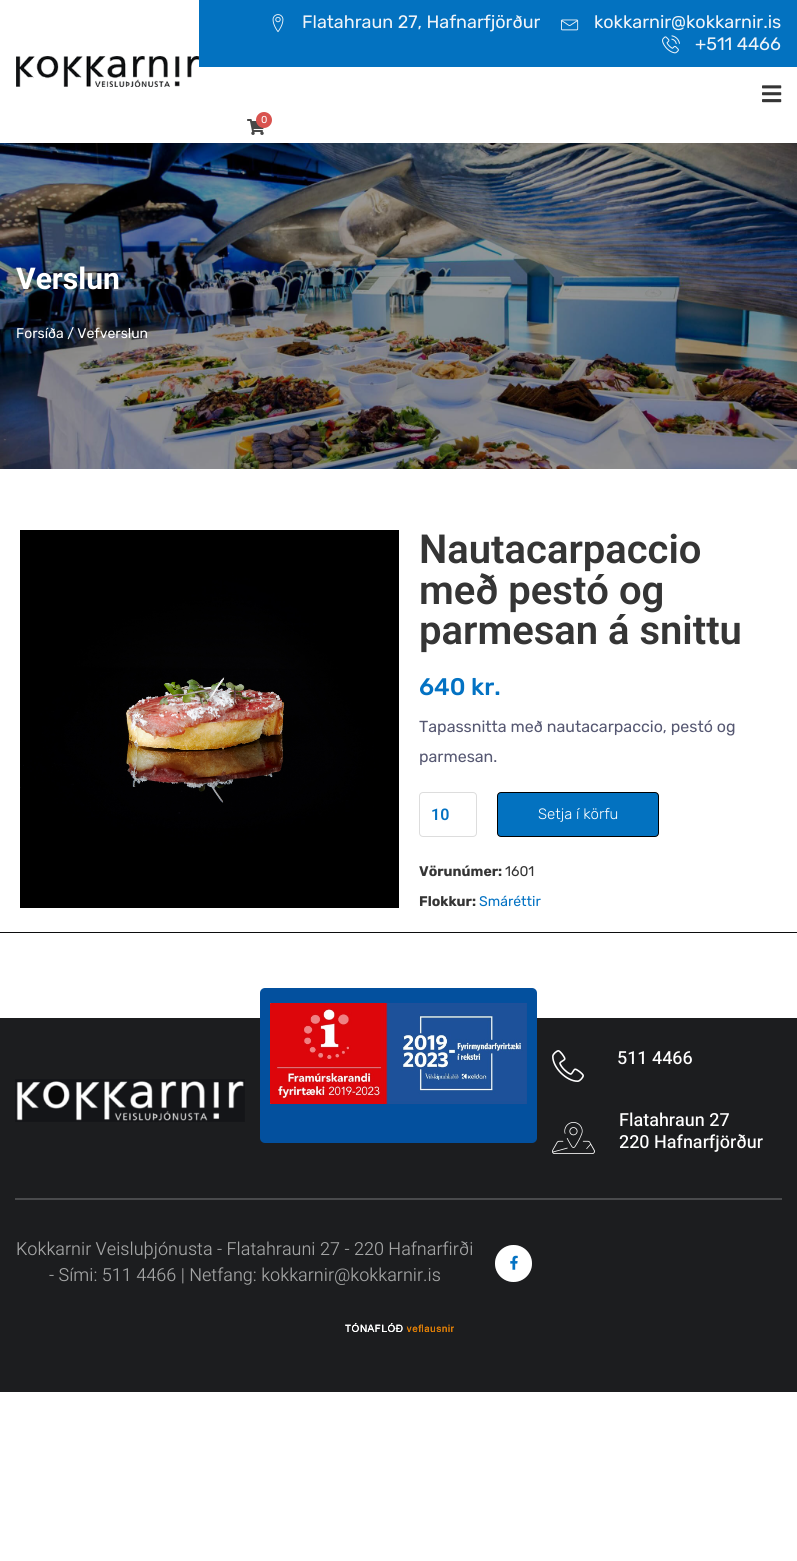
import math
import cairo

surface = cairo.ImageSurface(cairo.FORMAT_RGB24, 797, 1561)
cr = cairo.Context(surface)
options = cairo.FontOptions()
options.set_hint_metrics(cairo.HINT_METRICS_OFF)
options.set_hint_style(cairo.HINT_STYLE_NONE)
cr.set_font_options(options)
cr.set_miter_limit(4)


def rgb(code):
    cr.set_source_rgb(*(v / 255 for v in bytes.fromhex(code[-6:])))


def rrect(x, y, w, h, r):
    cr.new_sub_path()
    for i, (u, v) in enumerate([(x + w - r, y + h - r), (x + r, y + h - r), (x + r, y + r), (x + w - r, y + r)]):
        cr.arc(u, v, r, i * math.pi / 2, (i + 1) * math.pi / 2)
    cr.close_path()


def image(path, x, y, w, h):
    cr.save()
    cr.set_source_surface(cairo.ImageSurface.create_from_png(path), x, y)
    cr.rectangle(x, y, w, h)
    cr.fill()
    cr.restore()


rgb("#ffffff")
cr.paint()
image("img/1.png", 16, 56, 183, 31)
rgb("#0372c0")
cr.rectangle(199, 0, 598, 67)
cr.fill()
image("img/2.png", 272, 14, 12, 19)
image("img/3.png", 561, 19, 18, 12)
image("img/4.png", 662, 35, 18, 19)
image("img/5.png", 762, 85, 20, 18)
image("img/6.png", 247, 119, 17, 16)
rgb("#d9534f")
cr.arc(264, 120, 8, 0, 2 * math.pi)
cr.fill()
image("img/7.png", 0, 143, 797, 326)
image("img/8.png", 20, 530, 379, 378)
rrect(419.5, 792.5, 57, 44, 3.5)
rgb("#dddddd")
cr.set_line_width(1)
cr.stroke()
rgb("#0372c0")
rrect(497.5, 792.5, 161, 44, 3.5)
cr.fill_preserve()
rgb("#000000")
cr.stroke()
rgb("#0c0d0e")
cr.rectangle(0, 932, 797, 1)
cr.fill()
rgb("#1c1d1f")
cr.rectangle(0, 1018, 797, 374)
cr.fill()
image("img/9.png", 15, 1079, 230, 43)
rgb("#03509e")
rrect(260, 988, 277, 155, 5)
cr.fill()
image("img/10.png", 270, 1003, 257, 101)
image("img/11.png", 552, 1050, 32, 32)
image("img/12.png", 552, 1122, 43, 32)
rgb("#494a4c")
cr.rectangle(15, 1198, 767, 2)
cr.fill()
rgb("#ffffff")
cr.arc(513.5, 1263.5, 18.5, 0, 2 * math.pi)
cr.fill()
cr.arc(513.5, 1263.5, 18, 0, 2 * math.pi)
cr.set_source_rgba(1, 1, 1, 0.2)
cr.stroke()
image("img/13.png", 510, 1255, 8, 15)
image("img/14.png", 345, 1323, 109, 9)
cr.select_font_face("Rubik")
cr.set_font_size(18)
rgb("#f0f4f9")
for x, y, s in [
    (302, 28, "Flatahraun 27, Hafnarfjörður"),
    (594, 28, "kokkarnir@kokkarnir.is"),
    (695, 50, "+511 4466"),
]:
    cr.move_to(x, y)
    cr.show_text(s)
cr.set_font_size(10)
rgb("#ffffff")
cr.move_to(261, 123)
cr.show_text("0")
cr.select_font_face("Heebo", cairo.FONT_SLANT_NORMAL, cairo.FONT_WEIGHT_BOLD)
cr.set_font_size(30)
cr.move_to(16, 289)
cr.show_text("Verslun")
cr.select_font_face("Rubik")
cr.set_font_size(14)
cr.move_to(16, 338)
cr.show_text("Forsíða / Vefverslun")
cr.select_font_face("Roboto SemiBold")
cr.set_font_size(40)
rgb("#353535")
for x, y, s in [
    (419, 563, "Nautacarpaccio"),
    (419, 604, "með pestó og"),
    (419, 644, "parmesan á snittu"),
]:
    cr.move_to(x, y)
    cr.show_text(s)
cr.select_font_face("Rubik Medium")
cr.set_font_size(24)
rgb("#0372c3")
cr.move_to(419, 695)
cr.show_text("640 kr.")
cr.select_font_face("Rubik")
cr.set_font_size(16)
rgb("#565872")
cr.move_to(419, 732)
cr.show_text("Tapassnitta með nautacarpaccio, pestó og")
cr.move_to(419, 762)
cr.show_text("parmesan.")
cr.select_font_face("Roboto SemiBold")
rgb("#0372c3")
cr.move_to(431, 820)
cr.show_text("10")
cr.select_font_face("Rubik Light")
cr.set_font_size(15)
rgb("#ffffff")
cr.move_to(538, 819)
cr.show_text("Setja í körfu")
cr.select_font_face("Rubik", cairo.FONT_SLANT_NORMAL, cairo.FONT_WEIGHT_BOLD)
cr.set_font_size(14)
rgb("#353535")
cr.move_to(419, 876)
cr.show_text("Vörunúmer:")
cr.select_font_face("Rubik")
cr.move_to(505, 876)
cr.show_text("1601")
cr.select_font_face("Rubik", cairo.FONT_SLANT_NORMAL, cairo.FONT_WEIGHT_BOLD)
cr.move_to(419, 906)
cr.show_text("Flokkur:")
cr.select_font_face("Rubik")
rgb("#0372c3")
cr.move_to(479, 906)
cr.show_text("Smáréttir")
cr.select_font_face("Heebo Medium")
cr.set_font_size(18)
rgb("#ffffff")
for x, y, s in [
    (617, 1064, "511 4466"),
    (619, 1126, "Flatahraun 27"),
    (619, 1148, "220 Hafnarfjörður"),
]:
    cr.move_to(x, y)
    cr.show_text(s)
cr.select_font_face("Heebo Light")
rgb("#a4a5a5")
cr.move_to(16, 1255)
cr.show_text("Kokkarnir Veisluþjónusta - Flatahrauni 27 - 220 Hafnarfirði")
cr.move_to(49, 1281)
cr.show_text("- Sími: 511 4466 | Netfang: kokkarnir@kokkarnir.is")
surface.write_to_png("page.png")
